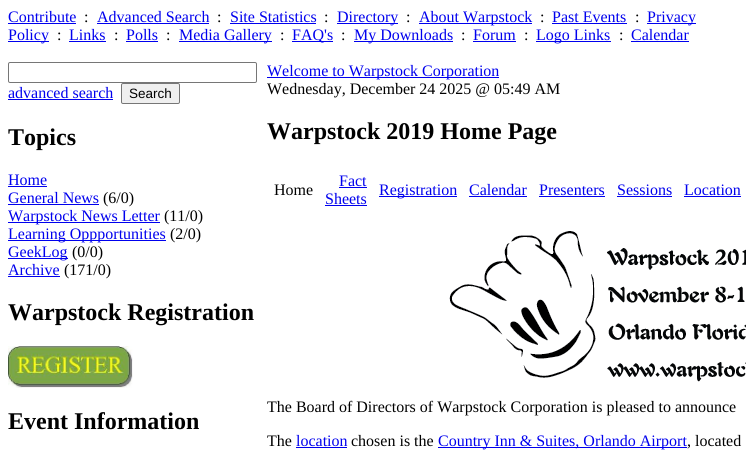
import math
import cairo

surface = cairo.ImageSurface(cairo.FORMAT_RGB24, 746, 461)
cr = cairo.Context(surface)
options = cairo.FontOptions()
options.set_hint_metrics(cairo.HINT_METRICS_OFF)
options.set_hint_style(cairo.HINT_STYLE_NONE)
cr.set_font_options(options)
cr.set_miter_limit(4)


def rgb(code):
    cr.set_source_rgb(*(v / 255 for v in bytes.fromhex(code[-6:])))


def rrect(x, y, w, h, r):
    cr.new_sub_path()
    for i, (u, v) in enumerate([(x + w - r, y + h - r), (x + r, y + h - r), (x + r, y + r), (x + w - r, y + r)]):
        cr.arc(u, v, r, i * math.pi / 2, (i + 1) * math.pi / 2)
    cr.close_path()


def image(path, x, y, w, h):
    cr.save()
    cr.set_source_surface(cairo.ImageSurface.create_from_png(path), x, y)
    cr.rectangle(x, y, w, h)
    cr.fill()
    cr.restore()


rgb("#ffffff")
cr.paint()
for x, y, w, h, color in [
    (8, 23, 68, 1, "#0000ee"),
    (97, 23, 112, 1, "#0000ee"),
    (230, 23, 86, 1, "#0000ee"),
    (337, 23, 61, 1, "#0000ee"),
    (419, 23, 113, 1, "#0000ee"),
    (552, 23, 75, 1, "#0000ee"),
    (647, 23, 49, 1, "#0000ee"),
    (8, 41, 41, 1, "#0000ee"),
    (69, 41, 37, 1, "#0000ee"),
    (126, 41, 32, 1, "#0000ee"),
    (179, 41, 93, 1, "#0000ee"),
    (292, 41, 41, 1, "#0000ee"),
    (354, 41, 99, 1, "#0000ee"),
    (473, 41, 43, 1, "#0000ee"),
    (536, 41, 75, 1, "#0000ee"),
    (631, 41, 58, 1, "#0000ee"),
]:
    rgb(color)
    cr.rectangle(x, y, w, h)
    cr.fill()
rrect(8.5, 62.5, 248, 20, 1.5)
rgb("#767676")
cr.set_line_width(1)
cr.stroke()
rgb("#0000ee")
cr.rectangle(8, 99, 105, 1)
cr.fill()
rgb("#efefef")
rrect(121.5, 83.5, 58, 20, 1.5)
cr.fill_preserve()
rgb("#767676")
cr.stroke()
for x, y, w, h, color in [
    (8, 186, 39, 1, "#0000ee"),
    (8, 204, 91, 1, "#0000ee"),
    (8, 222, 152, 1, "#0000ee"),
    (8, 240, 158, 1, "#0000ee"),
    (8, 258, 60, 1, "#0000ee"),
    (8, 276, 52, 1, "#0000ee"),
]:
    rgb(color)
    cr.rectangle(x, y, w, h)
    cr.fill()
image("img/1.png", 8, 346, 125, 42)
for x, y, w, h, color in [
    (267, 77, 232, 1, "#0000ee"),
    (339, 187, 28, 1, "#0000ee"),
    (325, 205, 42, 1, "#0000ee"),
    (379, 196, 78, 1, "#0000ee"),
    (469, 196, 58, 1, "#0000ee"),
    (539, 196, 66, 1, "#0000ee"),
    (617, 196, 55, 1, "#0000ee"),
    (684, 196, 57, 1, "#0000ee"),
]:
    rgb(color)
    cr.rectangle(x, y, w, h)
    cr.fill()
image("img/2.png", 449, 231, 297, 151)
cr.rectangle(296, 447, 51, 1)
cr.fill()
cr.rectangle(438, 447, 249, 1)
cr.fill()
cr.select_font_face("Liberation Serif")
cr.set_font_size(16)
cr.move_to(8, 22)
cr.show_text("Contribute")
rgb("#000000")
cr.move_to(84, 22)
cr.show_text(":")
rgb("#0000ee")
cr.move_to(97, 22)
cr.show_text("Advanced Search")
rgb("#000000")
cr.move_to(217, 22)
cr.show_text(":")
rgb("#0000ee")
cr.move_to(230, 22)
cr.show_text("Site Statistics")
rgb("#000000")
cr.move_to(324, 22)
cr.show_text(":")
rgb("#0000ee")
cr.move_to(337, 22)
cr.show_text("Directory")
rgb("#000000")
cr.move_to(406, 22)
cr.show_text(":")
rgb("#0000ee")
cr.move_to(419, 22)
cr.show_text("About Warpstock")
rgb("#000000")
cr.move_to(540, 22)
cr.show_text(":")
rgb("#0000ee")
cr.move_to(552, 22)
cr.show_text("Past Events")
rgb("#000000")
cr.move_to(635, 22)
cr.show_text(":")
rgb("#0000ee")
cr.move_to(647, 22)
cr.show_text("Privacy")
cr.move_to(8, 40)
cr.show_text("Policy")
rgb("#000000")
cr.move_to(57, 40)
cr.show_text(":")
rgb("#0000ee")
cr.move_to(69, 40)
cr.show_text("Links")
rgb("#000000")
cr.move_to(114, 40)
cr.show_text(":")
rgb("#0000ee")
cr.move_to(126, 40)
cr.show_text("Polls")
rgb("#000000")
cr.move_to(166, 40)
cr.show_text(":")
rgb("#0000ee")
cr.move_to(179, 40)
cr.show_text("Media Gallery")
rgb("#000000")
cr.move_to(280, 40)
cr.show_text(":")
rgb("#0000ee")
cr.move_to(292, 40)
cr.show_text("FAQ's")
rgb("#000000")
cr.move_to(341, 40)
cr.show_text(":")
rgb("#0000ee")
cr.move_to(354, 40)
cr.show_text("My Downloads")
rgb("#000000")
cr.move_to(461, 40)
cr.show_text(":")
rgb("#0000ee")
cr.move_to(473, 40)
cr.show_text("Forum")
rgb("#000000")
cr.move_to(524, 40)
cr.show_text(":")
rgb("#0000ee")
cr.move_to(536, 40)
cr.show_text("Logo Links")
rgb("#000000")
cr.move_to(619, 40)
cr.show_text(":")
rgb("#0000ee")
cr.move_to(631, 40)
cr.show_text("Calendar")
cr.move_to(8, 98)
cr.show_text("advanced search")
cr.select_font_face("Liberation Sans")
cr.set_font_size(13.5)
rgb("#000000")
cr.move_to(129, 98)
cr.show_text("Search")
cr.select_font_face("Liberation Serif", cairo.FONT_SLANT_NORMAL, cairo.FONT_WEIGHT_BOLD)
cr.set_font_size(24)
cr.move_to(8, 145)
cr.show_text("Topics")
cr.select_font_face("Liberation Serif")
cr.set_font_size(16)
rgb("#0000ee")
cr.move_to(8, 185)
cr.show_text("Home")
cr.move_to(8, 203)
cr.show_text("General News")
rgb("#000000")
cr.move_to(103, 203)
cr.show_text("(6/0)")
rgb("#0000ee")
cr.move_to(8, 221)
cr.show_text("Warpstock News Letter")
rgb("#000000")
cr.move_to(164, 221)
cr.show_text("(11/0)")
rgb("#0000ee")
cr.move_to(8, 239)
cr.show_text("Learning Oppportunities")
rgb("#000000")
cr.move_to(170, 239)
cr.show_text("(2/0)")
rgb("#0000ee")
cr.move_to(8, 257)
cr.show_text("GeekLog")
rgb("#000000")
cr.move_to(72, 257)
cr.show_text("(0/0)")
rgb("#0000ee")
cr.move_to(8, 275)
cr.show_text("Archive")
rgb("#000000")
cr.move_to(64, 275)
cr.show_text("(171/0)")
cr.select_font_face("Liberation Serif", cairo.FONT_SLANT_NORMAL, cairo.FONT_WEIGHT_BOLD)
cr.set_font_size(24)
cr.move_to(8, 320)
cr.show_text("Warpstock Registration")
cr.move_to(8, 429)
cr.show_text("Event Information")
cr.select_font_face("Liberation Serif")
cr.set_font_size(16)
rgb("#0000ee")
cr.move_to(267, 76)
cr.show_text("Welcome to Warpstock Corporation")
rgb("#000000")
cr.move_to(267, 94)
cr.show_text("Wednesday, December 24 2025 @ 05:49 AM")
cr.select_font_face("Liberation Serif", cairo.FONT_SLANT_NORMAL, cairo.FONT_WEIGHT_BOLD)
cr.set_font_size(24)
cr.move_to(267, 139)
cr.show_text("Warpstock 2019 Home Page")
cr.select_font_face("Liberation Serif")
cr.set_font_size(16)
cr.move_to(274, 195)
cr.show_text("Home")
rgb("#0000ee")
for x, y, s in [
    (339, 186, "Fact"),
    (325, 204, "Sheets"),
    (379, 195, "Registration"),
    (469, 195, "Calendar"),
    (539, 195, "Presenters"),
    (617, 195, "Sessions"),
    (684, 195, "Location"),
]:
    cr.move_to(x, y)
    cr.show_text(s)
rgb("#000000")
cr.move_to(267, 412)
cr.show_text("The Board of Directors of Warpstock Corporation is pleased to announce")
cr.move_to(267, 446)
cr.show_text("The")
rgb("#0000ee")
cr.move_to(296, 446)
cr.show_text("location")
rgb("#000000")
cr.move_to(351, 446)
cr.show_text("chosen is the")
rgb("#0000ee")
cr.move_to(438, 446)
cr.show_text("Country Inn & Suites, Orlando Airport")
rgb("#000000")
cr.move_to(687, 446)
cr.show_text(", located")
surface.write_to_png("page.png")
